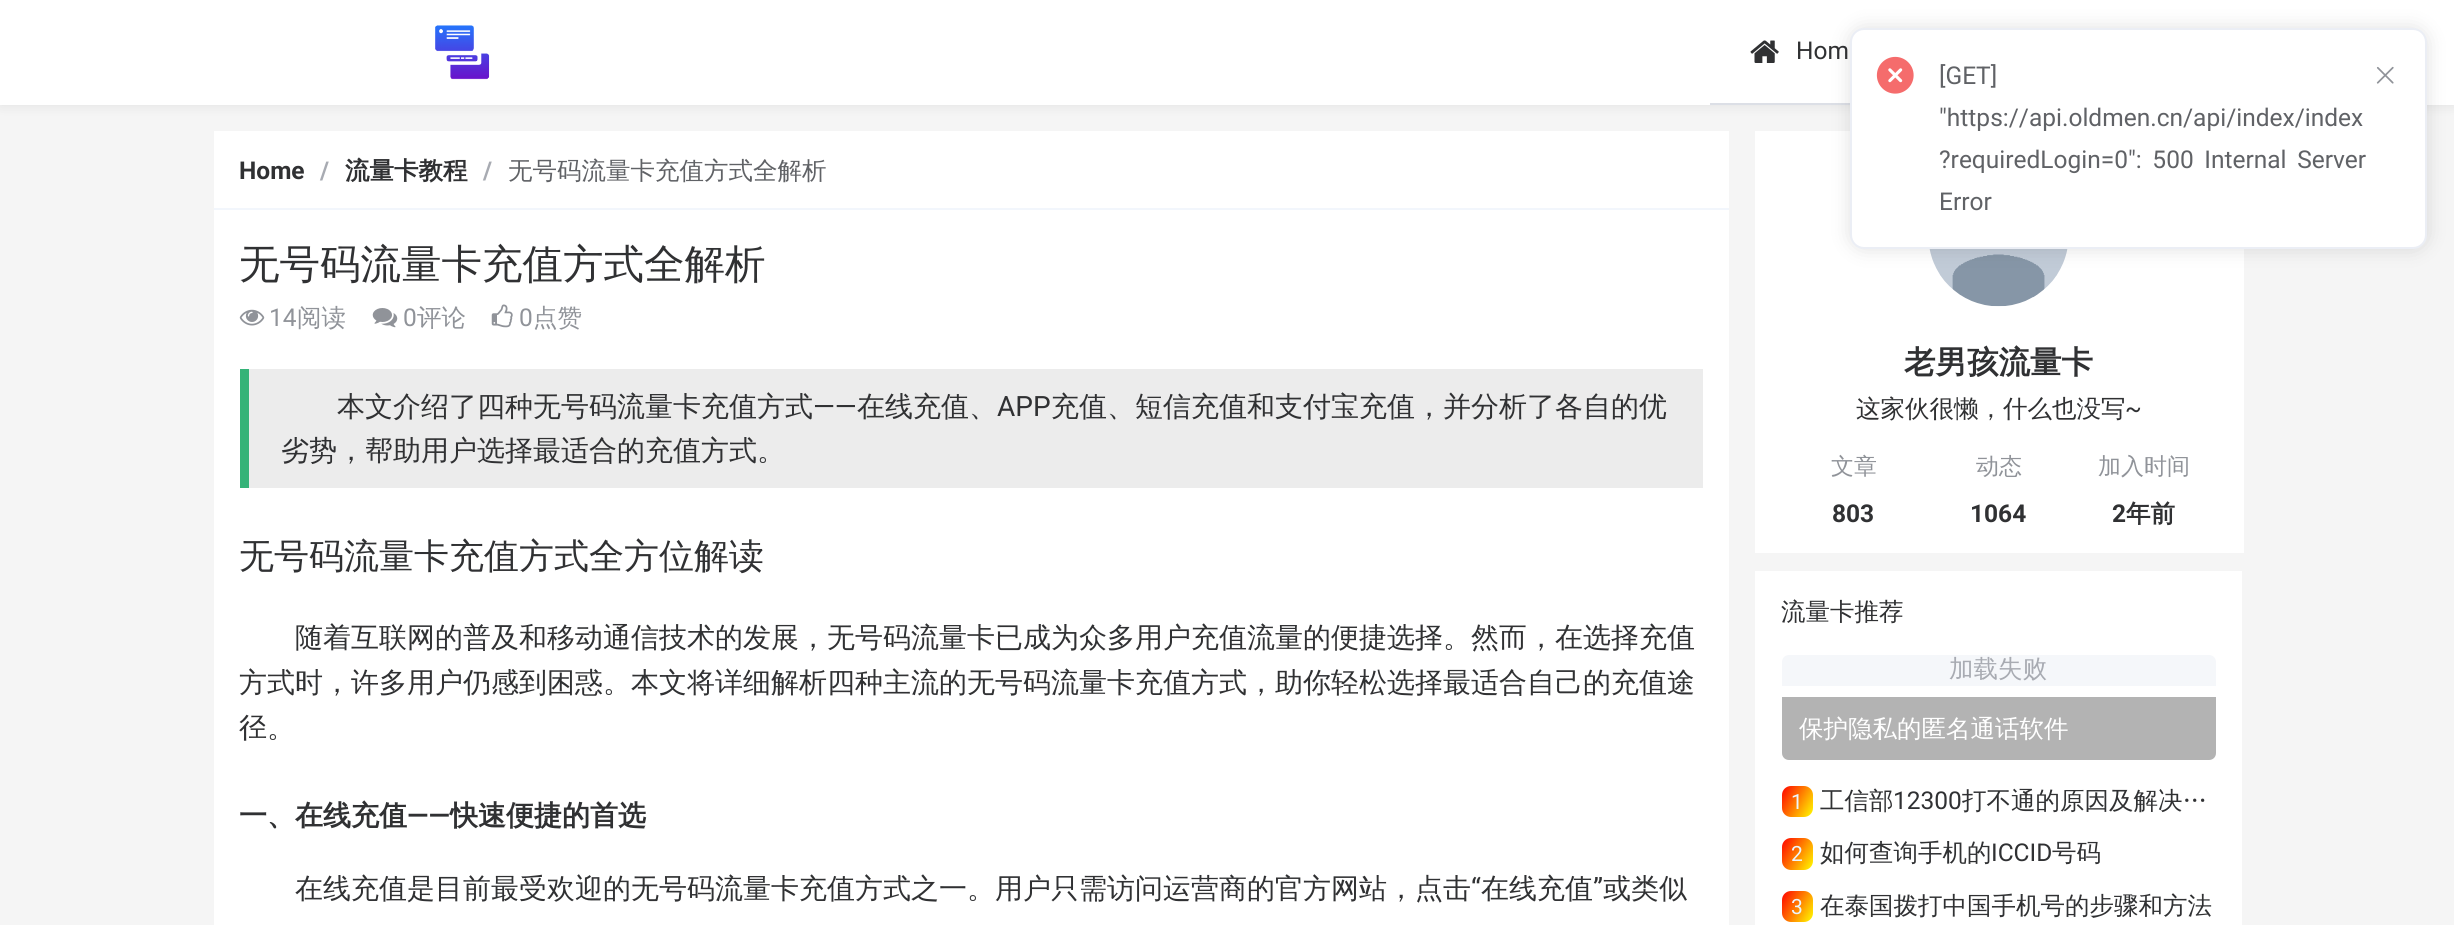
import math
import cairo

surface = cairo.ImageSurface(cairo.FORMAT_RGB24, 2454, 925)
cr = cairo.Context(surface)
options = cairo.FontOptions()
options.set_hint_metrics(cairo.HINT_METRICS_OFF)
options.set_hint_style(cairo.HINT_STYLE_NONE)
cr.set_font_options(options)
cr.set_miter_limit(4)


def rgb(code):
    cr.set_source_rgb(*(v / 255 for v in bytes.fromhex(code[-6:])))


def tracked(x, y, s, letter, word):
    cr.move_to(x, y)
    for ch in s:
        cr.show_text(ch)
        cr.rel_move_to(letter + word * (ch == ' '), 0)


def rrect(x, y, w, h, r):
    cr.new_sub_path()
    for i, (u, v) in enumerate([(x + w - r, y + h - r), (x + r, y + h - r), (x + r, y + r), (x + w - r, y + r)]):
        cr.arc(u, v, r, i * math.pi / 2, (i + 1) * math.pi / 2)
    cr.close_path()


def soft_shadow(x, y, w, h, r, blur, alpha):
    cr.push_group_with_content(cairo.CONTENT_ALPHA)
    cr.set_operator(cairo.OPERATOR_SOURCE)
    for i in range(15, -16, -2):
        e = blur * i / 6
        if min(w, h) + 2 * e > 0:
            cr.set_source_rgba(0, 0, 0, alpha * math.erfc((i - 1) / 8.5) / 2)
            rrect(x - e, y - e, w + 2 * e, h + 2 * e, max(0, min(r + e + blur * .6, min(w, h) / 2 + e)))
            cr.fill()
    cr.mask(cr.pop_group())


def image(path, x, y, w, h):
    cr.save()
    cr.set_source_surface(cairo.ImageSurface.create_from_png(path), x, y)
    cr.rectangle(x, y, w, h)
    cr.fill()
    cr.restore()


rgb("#f5f5f5")
cr.paint()
rgb("#000000")
soft_shadow(0, 0, 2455, 105, 0, 7, 0.08)
rgb("#ffffff")
cr.rectangle(0, 0, 2454, 105)
cr.fill()
image("img/1.png", 435, 25, 55, 55)
rgb("#dcdfe6")
cr.rectangle(1710, 103, 140, 2)
cr.fill()
image("img/2.png", 1750, 40, 29, 23)
rgb("#ffffff")
cr.rectangle(214, 131, 1515, 794)
cr.fill()
rgb("#f2f6fc")
cr.rectangle(214, 208, 1515, 2)
cr.fill()
image("img/3.png", 239, 309, 26, 17)
image("img/4.png", 372, 308, 26, 20)
image("img/5.png", 491, 304, 22, 24)
for x, y, w, h, color in [
    (249, 369, 1454, 119, "#ececec"),
    (240, 369, 9, 119, "#35b378"),
    (1755, 131, 489, 422, "#ffffff"),
]:
    rgb(color)
    cr.rectangle(x, y, w, h)
    cr.fill()
image("img/6.png", 1929, 249, 139, 58)
cr.rectangle(1755, 571, 487, 354)
cr.fill()
rgb("#f5f7fa")
cr.new_path()
cr.move_to(1789, 655)
cr.line_to(2209, 655)
cr.curve_to(2213, 655, 2216, 658, 2216, 662)
cr.line_to(2216, 686)
cr.line_to(1782, 686)
cr.line_to(1782, 662)
cr.curve_to(1782, 658, 1785, 655, 1789, 655)
cr.close_path()
cr.fill()
rgb("#b3b3b3")
cr.new_path()
cr.move_to(1782, 697)
cr.line_to(2216, 697)
cr.line_to(2216, 753)
cr.curve_to(2216, 757, 2213, 760, 2209, 760)
cr.line_to(1789, 760)
cr.curve_to(1785, 760, 1782, 757, 1782, 753)
cr.close_path()
cr.fill()
gradient = cairo.LinearGradient(1779, 791, 1816, 812)
gradient.add_color_stop_rgba(0, 1, 0, 0, 1)
gradient.add_color_stop_rgba(1, 1, 1, 0, 1)
cr.set_source(gradient)
rrect(1782, 786, 31, 31, 9)
cr.fill()
gradient = cairo.LinearGradient(1779, 843, 1816, 865)
gradient.add_color_stop_rgba(0, 1, 0, 0, 1)
gradient.add_color_stop_rgba(1, 1, 1, 0, 1)
cr.set_source(gradient)
rrect(1782, 838, 31, 32, 9)
cr.fill()
gradient = cairo.LinearGradient(1779, 896, 1816, 917)
gradient.add_color_stop_rgba(0, 1, 0, 0, 1)
gradient.add_color_stop_rgba(1, 1, 1, 0, 1)
cr.set_source(gradient)
rrect(1782, 891, 31, 31, 9)
cr.fill()
rgb("#000000")
soft_shadow(1850, 28, 577, 221, 14, 10.5, 0.12)
rgb("#ffffff")
rrect(1851, 29, 575, 219, 13)
cr.fill_preserve()
rgb("#ebeef5")
cr.stroke()
image("img/7.png", 1876, 56, 38, 38)
image("img/8.png", 2376, 66, 18, 18)
cr.select_font_face("Roboto")
cr.set_font_size(24.5)
rgb("#303133")
cr.move_to(1796, 59)
cr.show_text("Hom")
cr.select_font_face("Roboto", cairo.FONT_SLANT_NORMAL, cairo.FONT_WEIGHT_BOLD)
cr.move_to(239, 179)
cr.show_text("Home")
rgb("#a8abb2")
cr.move_to(320, 179)
cr.show_text("/")
cr.select_font_face("WenQuanYi Zen Hei", cairo.FONT_SLANT_NORMAL, cairo.FONT_WEIGHT_BOLD)
rgb("#303133")
cr.move_to(345, 179)
cr.show_text("流量卡教程")
cr.select_font_face("Roboto", cairo.FONT_SLANT_NORMAL, cairo.FONT_WEIGHT_BOLD)
rgb("#a8abb2")
cr.move_to(483, 179)
cr.show_text("/")
cr.select_font_face("WenQuanYi Zen Hei Medium")
rgb("#606266")
cr.move_to(508, 179)
cr.show_text("无号码流量卡充值方式全解析")
cr.set_font_size(40.5)
rgb("#303133")
cr.move_to(239, 278)
cr.show_text("无号码流量卡充值方式全解析")
cr.select_font_face("Roboto")
cr.set_font_size(24.5)
rgb("#909399")
cr.move_to(269, 326)
cr.show_text("14")
cr.select_font_face("WenQuanYi Zen Hei Medium")
cr.move_to(297, 326)
cr.show_text("阅读")
cr.select_font_face("Roboto")
cr.move_to(403, 326)
cr.show_text("0")
cr.select_font_face("WenQuanYi Zen Hei Medium")
cr.move_to(417, 326)
cr.show_text("评论")
cr.select_font_face("Roboto")
cr.move_to(519, 326)
cr.show_text("0")
cr.select_font_face("WenQuanYi Zen Hei Medium")
cr.move_to(533, 326)
cr.show_text("点赞")
cr.set_font_size(28)
rgb("#303133")
cr.move_to(337, 416)
cr.show_text("本文介绍了四种无号码流量卡充值方式")
cr.select_font_face("Roboto")
cr.move_to(813, 416)
cr.show_text("——")
cr.select_font_face("WenQuanYi Zen Hei Medium")
cr.move_to(857, 416)
cr.show_text("在线充值、")
cr.select_font_face("Roboto")
cr.move_to(997, 416)
cr.show_text("APP")
cr.select_font_face("WenQuanYi Zen Hei Medium")
cr.move_to(1051, 416)
cr.show_text("充值、短信充值和支付宝充值，并分析了各自的优")
cr.move_to(281, 460)
cr.show_text("劣势，帮助用户选择最适合的充值方式。")
cr.set_font_size(35)
cr.move_to(239, 568)
cr.show_text("无号码流量卡充值方式全方位解读")
cr.set_font_size(28)
for x, y, s in [
    (295, 647, "随着互联网的普及和移动通信技术的发展，无号码流量卡已成为众多用户充值流量的便捷选择。然而，在选择充值"),
    (239, 692, "方式时，许多用户仍感到困惑。本文将详细解析四种主流的无号码流量卡充值方式，助你轻松选择最适合自己的充值途"),
    (239, 737, "径。"),
]:
    cr.move_to(x, y)
    cr.show_text(s)
cr.select_font_face("WenQuanYi Zen Hei", cairo.FONT_SLANT_NORMAL, cairo.FONT_WEIGHT_BOLD)
cr.move_to(239, 825)
cr.show_text("一、在线充值")
cr.select_font_face("Roboto SemiBold")
cr.move_to(407, 825)
cr.show_text("——")
cr.select_font_face("WenQuanYi Zen Hei", cairo.FONT_SLANT_NORMAL, cairo.FONT_WEIGHT_BOLD)
cr.move_to(450, 825)
cr.show_text("快速便捷的首选")
cr.select_font_face("WenQuanYi Zen Hei Medium")
cr.move_to(295, 898)
cr.show_text("在线充值是目前最受欢迎的无号码流量卡充值方式之一。用户只需访问运营商的官方网站，点击")
cr.select_font_face("Roboto")
cr.move_to(1471, 898)
cr.show_text("“")
cr.select_font_face("WenQuanYi Zen Hei Medium")
cr.move_to(1481, 898)
cr.show_text("在线充值")
cr.select_font_face("Roboto")
cr.move_to(1593, 898)
cr.show_text("”")
cr.select_font_face("WenQuanYi Zen Hei Medium")
cr.move_to(1603, 898)
cr.show_text("或类似")
cr.select_font_face("WenQuanYi Zen Hei", cairo.FONT_SLANT_NORMAL, cairo.FONT_WEIGHT_BOLD)
cr.set_font_size(31.5)
cr.move_to(1904, 373)
cr.show_text("老男孩流量卡")
cr.select_font_face("WenQuanYi Zen Hei Medium")
cr.set_font_size(24.5)
cr.move_to(1856, 417)
cr.show_text("这家伙很懒，什么也没写")
cr.select_font_face("Roboto")
cr.move_to(2125, 417)
cr.show_text("~")
cr.select_font_face("WenQuanYi Zen Hei Medium")
cr.set_font_size(23)
rgb("#909399")
cr.move_to(1831, 474)
cr.show_text("文章")
cr.select_font_face("Roboto", cairo.FONT_SLANT_NORMAL, cairo.FONT_WEIGHT_BOLD)
cr.set_font_size(24.5)
rgb("#303133")
cr.move_to(1832, 522)
cr.show_text("803")
cr.select_font_face("WenQuanYi Zen Hei Medium")
cr.set_font_size(23)
rgb("#909399")
cr.move_to(1976, 474)
cr.show_text("动态")
cr.select_font_face("Roboto", cairo.FONT_SLANT_NORMAL, cairo.FONT_WEIGHT_BOLD)
cr.set_font_size(24.5)
rgb("#303133")
cr.move_to(1970, 522)
cr.show_text("1064")
cr.select_font_face("WenQuanYi Zen Hei Medium")
cr.set_font_size(23)
rgb("#909399")
cr.move_to(2098, 474)
cr.show_text("加入时间")
cr.select_font_face("Roboto", cairo.FONT_SLANT_NORMAL, cairo.FONT_WEIGHT_BOLD)
cr.set_font_size(24.5)
rgb("#303133")
cr.move_to(2112, 522)
cr.show_text("2")
cr.select_font_face("WenQuanYi Zen Hei", cairo.FONT_SLANT_NORMAL, cairo.FONT_WEIGHT_BOLD)
cr.move_to(2126, 522)
cr.show_text("年前")
cr.select_font_face("WenQuanYi Zen Hei Medium")
cr.move_to(1781, 620)
cr.show_text("流量卡推荐")
rgb("#a8abb2")
cr.move_to(1949, 677)
cr.show_text("加载失败")
rgb("#ffffff")
cr.move_to(1799, 737)
cr.show_text("保护隐私的匿名通话软件")
cr.select_font_face("Roboto")
cr.set_font_size(21)
rgb("#ecf5ff")
cr.move_to(1791, 809)
cr.show_text("1")
cr.select_font_face("WenQuanYi Zen Hei Medium")
cr.set_font_size(24.5)
rgb("#303133")
cr.move_to(1820, 809)
cr.show_text("工信部")
cr.select_font_face("Roboto")
cr.move_to(1893, 809)
cr.show_text("12300")
cr.select_font_face("WenQuanYi Zen Hei Medium")
cr.move_to(1962, 809)
cr.show_text("打不通的原因及解决…")
cr.select_font_face("Roboto")
cr.set_font_size(21)
rgb("#ecf5ff")
cr.move_to(1791, 861)
cr.show_text("2")
cr.select_font_face("WenQuanYi Zen Hei Medium")
cr.set_font_size(24.5)
rgb("#303133")
cr.move_to(1820, 861)
cr.show_text("如何查询手机的")
cr.select_font_face("Roboto")
cr.move_to(1991, 861)
cr.show_text("ICCID")
cr.select_font_face("WenQuanYi Zen Hei Medium")
cr.move_to(2052, 861)
cr.show_text("号码")
cr.select_font_face("Roboto")
cr.set_font_size(21)
rgb("#ecf5ff")
cr.move_to(1791, 914)
cr.show_text("3")
cr.select_font_face("WenQuanYi Zen Hei Medium")
cr.set_font_size(24.5)
rgb("#303133")
cr.move_to(1820, 914)
cr.show_text("在泰国拨打中国手机号的步骤和方法")
cr.select_font_face("Roboto")
rgb("#606266")
cr.move_to(1939, 84)
cr.show_text("[GET]")
cr.move_to(1939, 126)
cr.show_text("\"https://api.oldmen.cn/api/index/index")
tracked(1939, 168, "?requiredLogin=0\": 500 Internal Server", 0, 4.5)
cr.move_to(1939, 210)
cr.show_text("Error")
surface.write_to_png("page.png")
